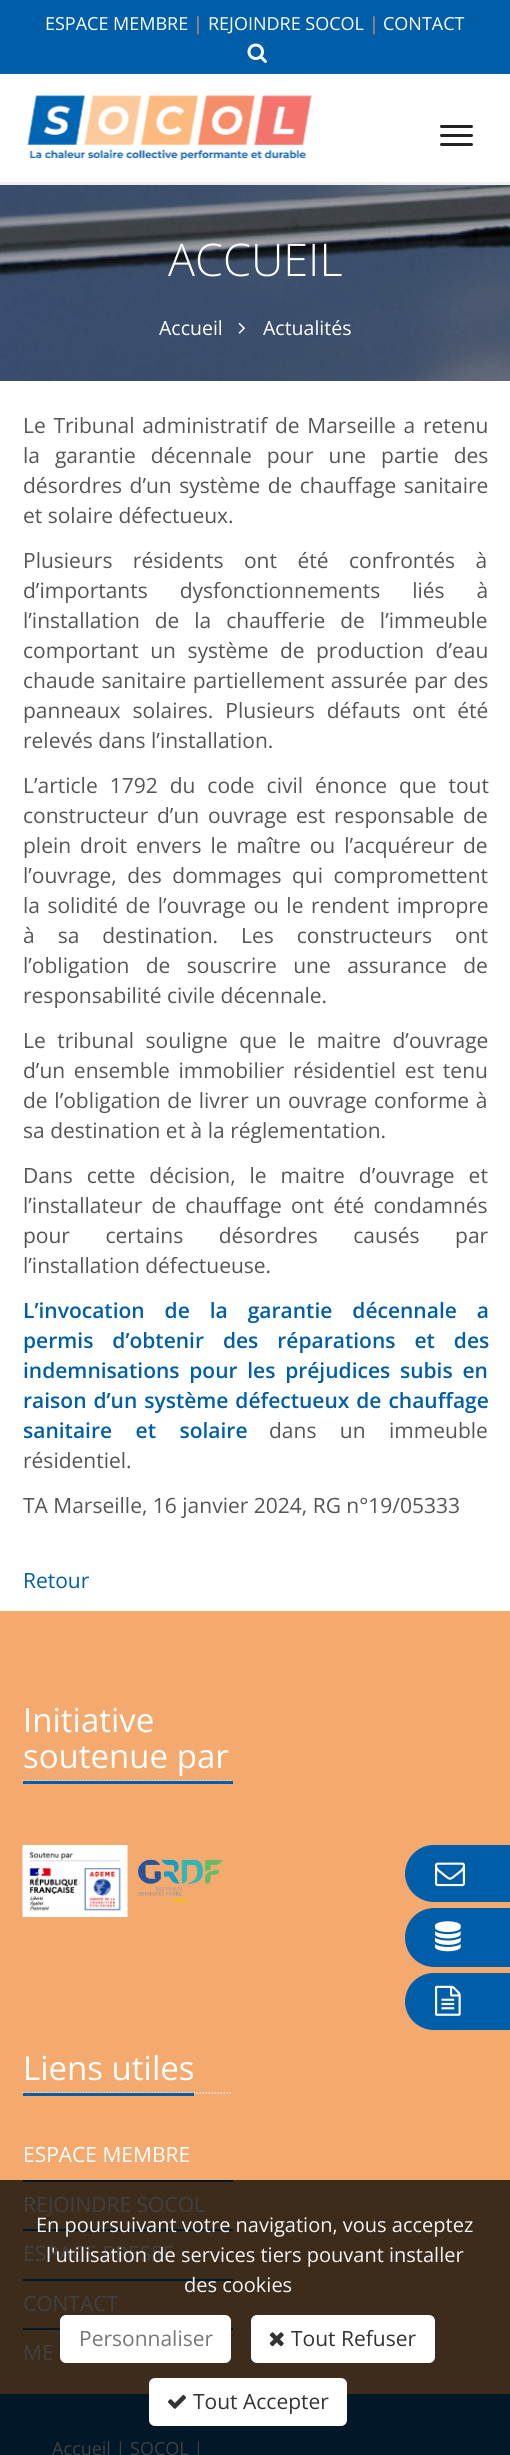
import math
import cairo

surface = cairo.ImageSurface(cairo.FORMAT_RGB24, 510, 2455)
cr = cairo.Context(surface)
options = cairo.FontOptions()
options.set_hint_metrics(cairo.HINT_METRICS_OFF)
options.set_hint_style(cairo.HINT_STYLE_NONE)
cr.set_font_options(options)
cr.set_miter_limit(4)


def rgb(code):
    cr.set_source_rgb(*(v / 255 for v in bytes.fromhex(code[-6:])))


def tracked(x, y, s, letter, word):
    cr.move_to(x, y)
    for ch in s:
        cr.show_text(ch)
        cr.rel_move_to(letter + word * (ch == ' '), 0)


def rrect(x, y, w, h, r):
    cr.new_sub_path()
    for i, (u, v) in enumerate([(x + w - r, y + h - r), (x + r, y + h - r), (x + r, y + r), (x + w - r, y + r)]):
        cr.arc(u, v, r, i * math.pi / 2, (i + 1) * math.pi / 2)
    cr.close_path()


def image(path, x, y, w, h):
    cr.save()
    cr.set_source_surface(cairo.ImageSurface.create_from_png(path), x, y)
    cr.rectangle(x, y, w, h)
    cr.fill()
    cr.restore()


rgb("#ffffff")
cr.paint()
rgb("#eeeeee")
cr.rectangle(0, 182, 510, 3)
cr.fill()
rgb("#005ea8")
cr.rectangle(0, 0, 510, 74)
cr.fill()
image("img/1.png", 247, 43, 20, 20)
image("img/2.png", 27, 95, 285, 65)
rgb("#222222")
rrect(440, 125, 33, 3, 1.5)
cr.fill()
rrect(440, 134, 33, 3, 1.5)
cr.fill()
rrect(440, 143, 33, 3, 1.5)
cr.fill()
image("img/3.png", 0, 185, 510, 196)
image("img/4.png", 238, 322, 7, 12)
rgb("#f4aa6f")
cr.rectangle(0, 1611, 510, 569)
cr.fill()
rgb("#3d2b1c")
cr.rectangle(0, 2180, 510, 214)
cr.fill()
cr.new_path()
cr.move_to(22.5, 1781)
cr.line_to(232.5, 1781)
rgb("#e4e9f0")
cr.set_line_width(1.5)
cr.set_dash([1.5, 1.5])
cr.stroke()
rgb("#005ea8")
cr.rectangle(23, 1781, 210, 3)
cr.fill()
image("img/5.png", 22, 1845, 106, 72)
image("img/6.png", 138, 1859, 84, 44)
cr.new_path()
cr.move_to(433.5, 1845)
cr.line_to(510, 1845)
cr.line_to(510, 1902)
cr.line_to(433.5, 1902)
cr.curve_to(418, 1902, 405, 1889, 405, 1873.5)
cr.curve_to(405, 1858, 418, 1845, 433.5, 1845)
cr.close_path()
cr.fill()
image("img/7.png", 435, 1862, 30, 25)
cr.new_path()
cr.move_to(434.5, 1908)
cr.line_to(510, 1908)
cr.line_to(510, 1967)
cr.line_to(434.5, 1967)
cr.curve_to(418, 1967, 405, 1954, 405, 1937.5)
cr.curve_to(405, 1921, 418, 1908, 434.5, 1908)
cr.close_path()
cr.fill()
image("img/8.png", 435, 1921, 26, 31)
cr.new_path()
cr.move_to(433.5, 1973)
cr.line_to(510, 1973)
cr.line_to(510, 2030)
cr.line_to(433.5, 2030)
cr.curve_to(418, 2030, 405, 2017, 405, 2001.5)
cr.curve_to(405, 1986, 418, 1973, 433.5, 1973)
cr.close_path()
cr.fill()
image("img/9.png", 435, 1985, 26, 31)
cr.new_path()
cr.move_to(22.5, 2093)
cr.line_to(232.5, 2093)
rgb("#e4e9f0")
cr.stroke()
for x, y, w, h, color in [
    (23, 2093, 171, 3, "#005ea8"),
    (23, 2180, 210, 2, "#00182a"),
    (23, 2229, 210, 2, "#00182a"),
    (23, 2279, 210, 2, "#00182a"),
    (23, 2328, 210, 2, "#00182a"),
    (0, 2394, 510, 61, "#00182a"),
]:
    rgb(color)
    cr.rectangle(x, y, w, h)
    cr.fill()
rgb("#ffffff")
rrect(60, 2315, 171, 48, 6)
cr.fill()
rrect(251, 2315, 184, 48, 6)
cr.fill()
image("img/10.png", 269, 2332, 15, 15)
rrect(149, 2378, 198, 48, 6)
cr.fill()
image("img/11.png", 167, 2394, 20, 15)
cr.select_font_face("Open Sans")
cr.set_font_size(18)
cr.move_to(45, 30)
cr.show_text("ESPACE MEMBRE")
rgb("#f08d64")
cr.move_to(193, 30)
cr.show_text("|")
rgb("#ffffff")
cr.move_to(208, 30)
cr.show_text("REJOINDRE SOCOL")
rgb("#f08d64")
cr.move_to(369, 30)
cr.show_text("|")
rgb("#ffffff")
cr.move_to(383, 30)
cr.show_text("CONTACT")
cr.select_font_face("Open Sans Light")
cr.set_font_size(45)
cr.move_to(168, 276)
cr.show_text("ACCUEIL")
cr.select_font_face("Open Sans")
cr.set_font_size(19.5)
cr.move_to(159, 335)
cr.show_text("Accueil")
cr.move_to(263, 335)
cr.show_text("Actualités")
cr.set_font_size(21)
rgb("#555555")
tracked(23, 433, "Le Tribunal administratif de Marseille a retenu", 0, 2.25)
tracked(23, 463, "la garantie décennale pour une partie des", 0, 9.5)
tracked(23, 493, "désordres d’un système de chauffage sanitaire", 0, 2)
cr.move_to(23, 523)
cr.show_text("et solaire défectueux.")
tracked(23, 568, "Plusieurs résidents ont été confrontés à", 0, 15)
tracked(23, 598, "d’importants dysfonctionnements liés à", 0, 26.5)
tracked(23, 628, "l’installation de la chaufferie de l’immeuble", 0, 9.5)
tracked(23, 658, "comportant un système de production d’eau", 0, 6)
tracked(23, 688, "chaude sanitaire partiellement assurée par des", 0, 1)
tracked(23, 718, "panneaux solaires. Plusieurs défauts ont été", 0, 6.5)
cr.move_to(23, 748)
cr.show_text("relevés dans l’installation.")
tracked(23, 793, "L’article 1792 du code civil énonce que tout", 0, 6.5)
tracked(23, 823, "constructeur d’un ouvrage est responsable de", 0, 3.25)
tracked(23, 853, "plein droit envers le maître ou l’acquéreur de", 0, 3.5)
tracked(23, 883, "l’ouvrage, des dommages qui compromettent", 0, 5)
tracked(23, 913, "la solidité de l’ouvrage ou le rendent impropre", 0, 2)
tracked(23, 943, "à sa destination. Les constructeurs ont", 0, 17.5)
tracked(23, 973, "l’obligation de souscrire une assurance de", 0, 11)
cr.move_to(23, 1003)
cr.show_text("responsabilité civile décennale.")
tracked(23, 1048, "Le tribunal souligne que le maitre d’ouvrage", 0, 6)
tracked(23, 1078, "d’un ensemble immobilier résidentiel est tenu", 0, 3.25)
tracked(23, 1108, "de l’obligation de livrer un ouvrage conforme à", 0, 1.25)
cr.move_to(23, 1138)
cr.show_text("sa destination et à la réglementation.")
tracked(23, 1183, "Dans cette décision, le maitre d’ouvrage et", 0, 8.5)
tracked(23, 1213, "l’installateur de chauffage ont été condamnés", 0, 3.75)
tracked(23, 1243, "pour certains désordres causés par", 0, 30)
cr.move_to(23, 1273)
cr.show_text("l’installation défectueuse.")
cr.select_font_face("Open Sans SemiBold")
rgb("#005ea8")
tracked(23, 1318, "L’invocation de la garantie décennale a", 0, 14.5)
tracked(23, 1348, "permis d’obtenir des réparations et des", 0, 13.5)
tracked(23, 1378, "indemnisations pour les préjudices subis en", 0, 4.25)
tracked(23, 1408, "raison d’un système défectueux de chauffage", 0, 1.5)
tracked(23, 1438, "sanitaire et solaire", 0, 18)
cr.select_font_face("Open Sans")
rgb("#555555")
tracked(269, 1438, "dans un immeuble", 0, 18)
cr.move_to(23, 1468)
cr.show_text("résidentiel.")
cr.move_to(23, 1513)
cr.show_text("TA Marseille, 16 janvier 2024, RG n°19/05333")
rgb("#005ea8")
cr.move_to(23, 1588)
cr.show_text("Retour")
cr.set_font_size(33)
rgb("#ffffff")
for x, y, s in [
    (23, 1732, "Initiative"),
    (23, 1768, "soutenue par"),
    (23, 2080, "Liens utiles"),
]:
    cr.move_to(x, y)
    cr.show_text(s)
cr.set_font_size(21)
cr.move_to(23, 2162)
cr.show_text("ESPACE MEMBRE")
rgb("#404040")
for x, y, s in [
    (23, 2212, "REJOINDRE SOCOL"),
    (23, 2261, "ESPACE PRESSE"),
    (23, 2311, "CONTACT"),
    (23, 2360, "ME"),
]:
    cr.move_to(x, y)
    cr.show_text(s)
cr.set_font_size(18)
cr.move_to(52, 2455)
cr.show_text("Accueil | SOCOL |")
cr.set_font_size(20)
rgb("#f5f5f5")
for x, y, s in [
    (36, 2232, "En poursuivant votre navigation, vous acceptez"),
    (46, 2262, "l'utilisation de services tiers pouvant installer"),
    (184, 2292, "des cookies"),
]:
    cr.move_to(x, y)
    cr.show_text(s)
cr.set_font_size(21)
rgb("#777777")
cr.move_to(79, 2346)
cr.show_text("Personnaliser")
rgb("#333333")
cr.move_to(291, 2346)
cr.show_text("Tout Refuser")
cr.move_to(193, 2409)
cr.show_text("Tout Accepter")
surface.write_to_png("page.png")
